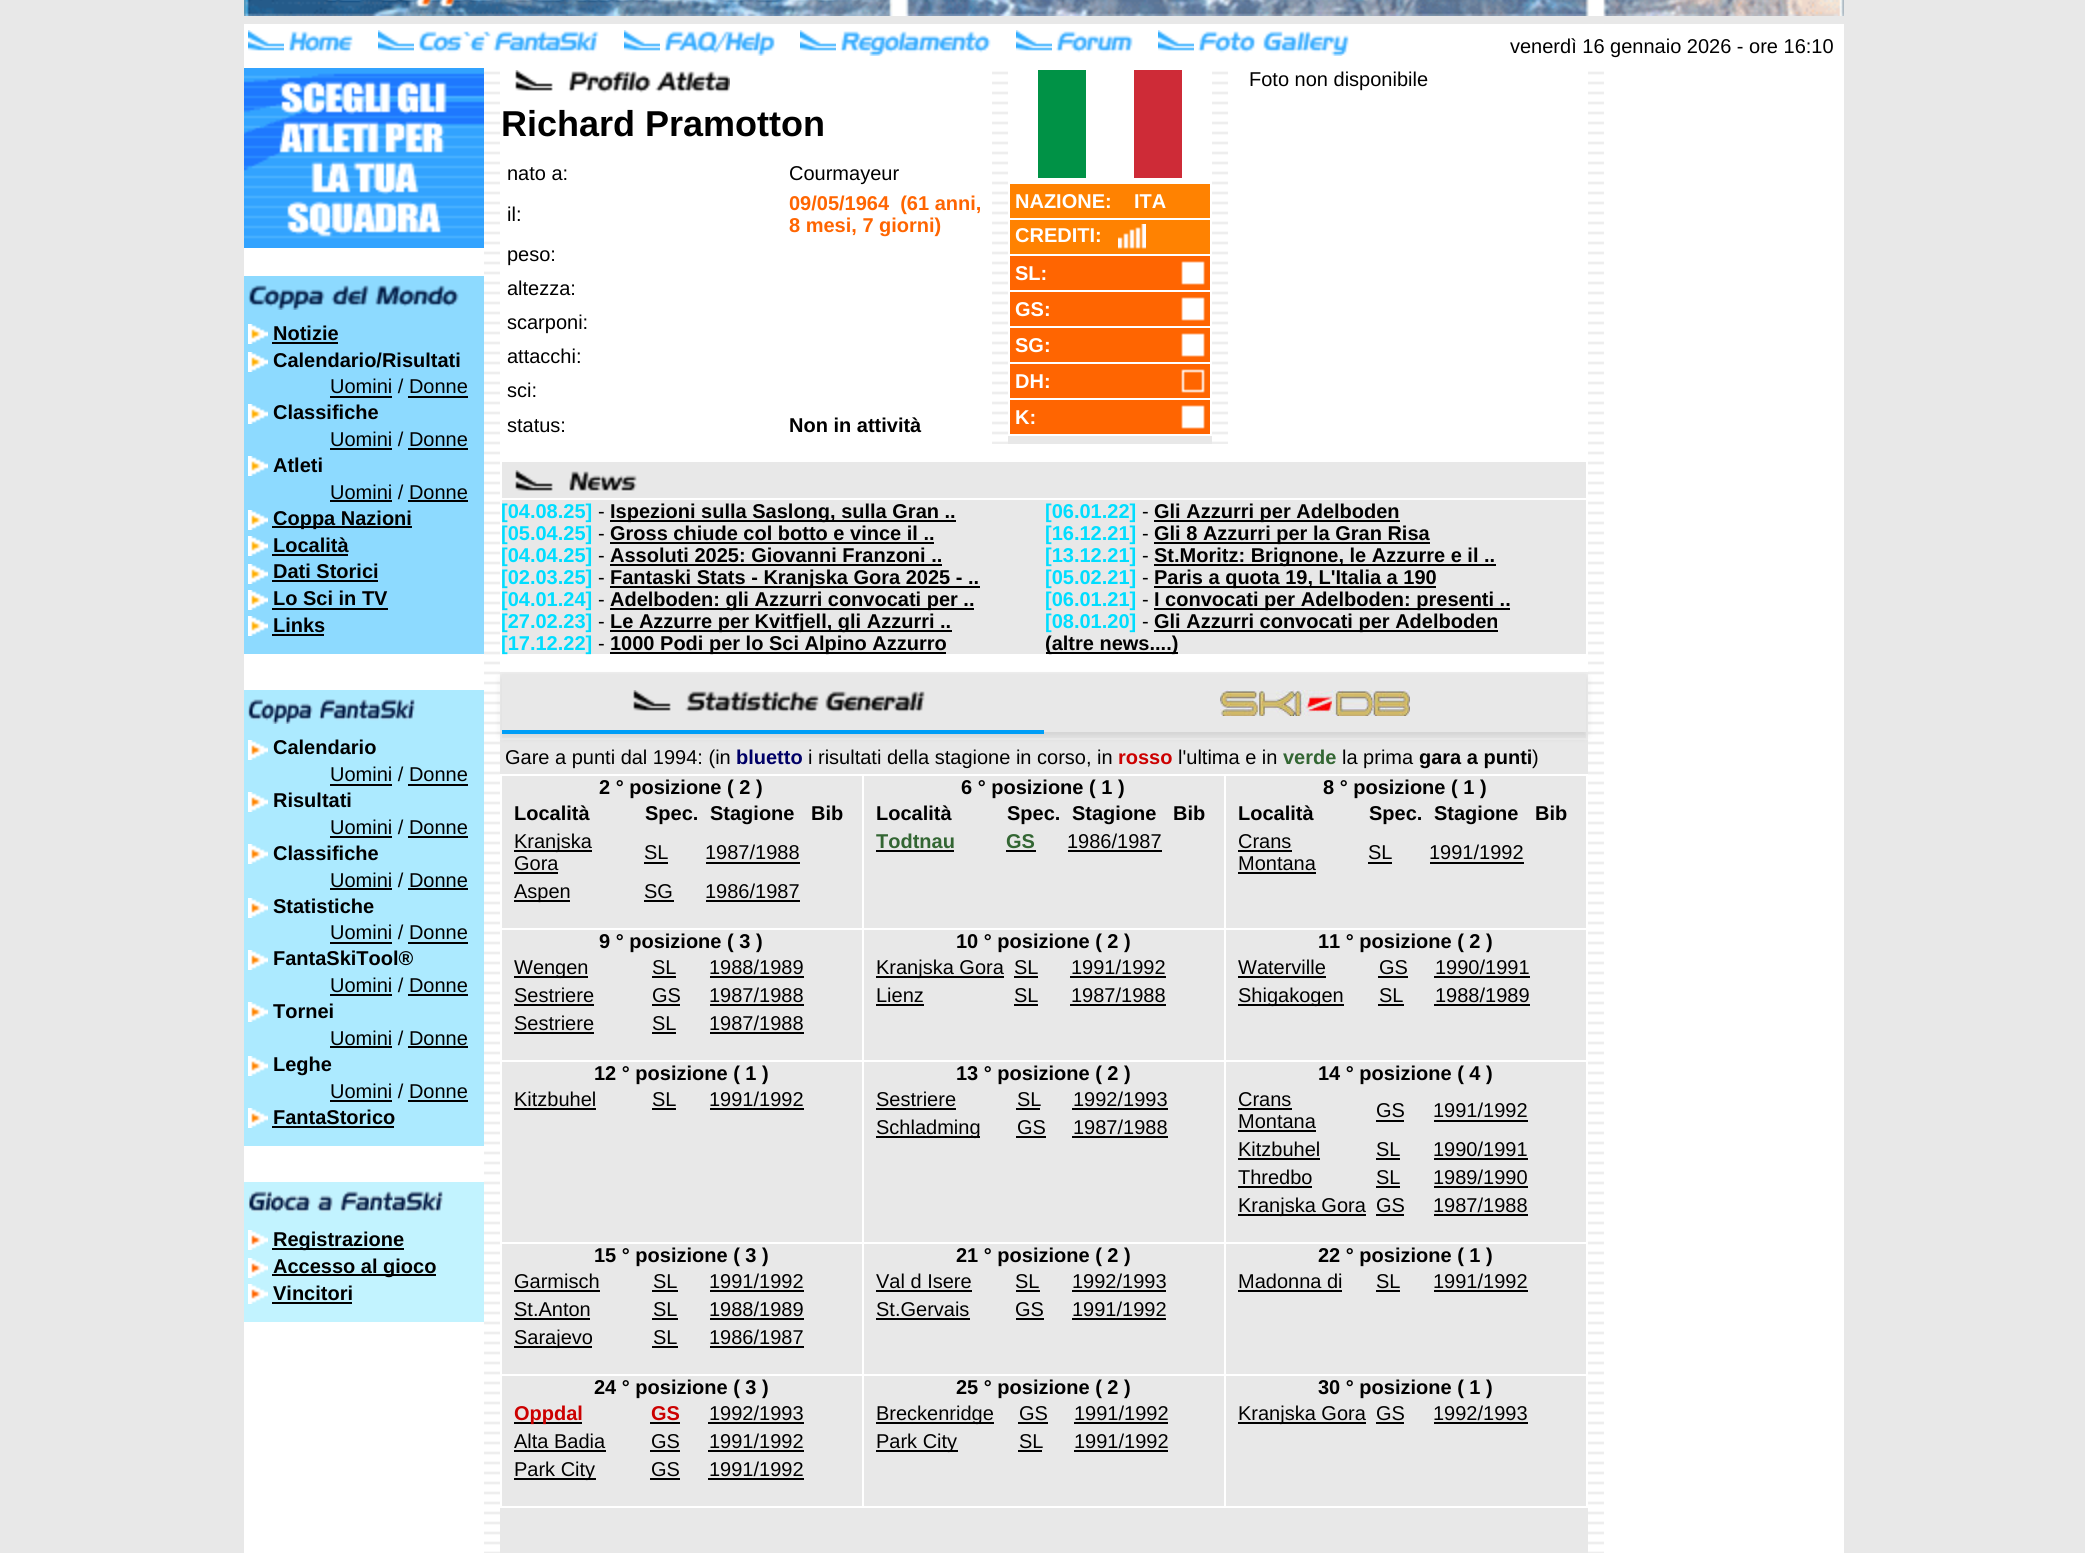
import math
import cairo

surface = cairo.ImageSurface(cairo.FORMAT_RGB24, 2085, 1553)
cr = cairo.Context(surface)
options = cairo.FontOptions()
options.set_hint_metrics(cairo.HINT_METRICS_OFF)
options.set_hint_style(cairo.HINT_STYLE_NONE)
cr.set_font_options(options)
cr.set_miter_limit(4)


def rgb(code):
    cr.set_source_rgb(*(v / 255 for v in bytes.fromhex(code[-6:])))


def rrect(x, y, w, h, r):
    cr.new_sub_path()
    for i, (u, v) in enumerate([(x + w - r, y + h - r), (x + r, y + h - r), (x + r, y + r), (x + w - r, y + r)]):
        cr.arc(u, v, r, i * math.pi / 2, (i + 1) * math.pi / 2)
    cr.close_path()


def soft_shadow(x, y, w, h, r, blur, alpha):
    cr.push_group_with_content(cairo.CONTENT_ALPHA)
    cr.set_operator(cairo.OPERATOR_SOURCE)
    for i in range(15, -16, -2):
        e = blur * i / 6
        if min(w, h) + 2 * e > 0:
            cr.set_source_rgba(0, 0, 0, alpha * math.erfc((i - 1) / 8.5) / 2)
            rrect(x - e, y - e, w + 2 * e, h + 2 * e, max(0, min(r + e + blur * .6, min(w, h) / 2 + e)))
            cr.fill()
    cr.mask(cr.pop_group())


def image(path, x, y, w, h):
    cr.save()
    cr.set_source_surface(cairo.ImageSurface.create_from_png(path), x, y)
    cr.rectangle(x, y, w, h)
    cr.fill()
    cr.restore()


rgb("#e8e8e8")
cr.paint()
image("img/1.png", 244, 0, 1600, 16)
rgb("#ffffff")
cr.rectangle(244, 24, 1600, 44)
cr.fill()
image("img/2.png", 248, 30, 36, 21)
image("img/3.png", 288, 31, 65, 22)
image("img/2.png", 378, 30, 36, 21)
image("img/4.png", 418, 31, 181, 22)
image("img/2.png", 624, 30, 36, 21)
image("img/5.png", 664, 31, 111, 25)
image("img/2.png", 800, 30, 36, 21)
image("img/6.png", 840, 31, 151, 25)
image("img/2.png", 1016, 30, 36, 21)
image("img/7.png", 1056, 31, 77, 22)
image("img/2.png", 1158, 30, 36, 21)
image("img/8.png", 1198, 31, 151, 25)
cr.rectangle(244, 248, 240, 1305)
cr.fill()
image("img/9.png", 244, 68, 240, 180)
rgb("#8ddaff")
cr.rectangle(244, 276, 240, 378)
cr.fill()
image("img/10.png", 248, 285, 211, 25)
image("img/11.png", 248, 324, 20, 20)
rgb("#000000")
cr.rectangle(272, 342, 66, 2)
cr.fill()
image("img/11.png", 248, 352, 20, 20)
cr.rectangle(330, 396, 62, 2)
cr.fill()
cr.rectangle(408, 396, 60, 2)
cr.fill()
image("img/11.png", 248, 404, 20, 20)
cr.rectangle(330, 448, 62, 2)
cr.fill()
cr.rectangle(408, 448, 60, 2)
cr.fill()
image("img/11.png", 248, 456, 20, 20)
cr.rectangle(330, 500, 62, 2)
cr.fill()
cr.rectangle(408, 500, 60, 2)
cr.fill()
image("img/11.png", 248, 510, 20, 20)
cr.rectangle(272, 526, 140, 2)
cr.fill()
image("img/11.png", 248, 536, 20, 20)
cr.rectangle(272, 554, 76, 2)
cr.fill()
image("img/11.png", 248, 564, 20, 20)
cr.rectangle(272, 580, 106, 2)
cr.fill()
image("img/11.png", 248, 590, 20, 20)
cr.rectangle(272, 608, 116, 2)
cr.fill()
image("img/11.png", 248, 616, 20, 20)
cr.rectangle(272, 634, 52, 2)
cr.fill()
rgb("#aceaff")
cr.rectangle(244, 690, 240, 456)
cr.fill()
image("img/12.png", 247, 699, 168, 25)
image("img/13.png", 248, 740, 20, 20)
rgb("#000000")
cr.rectangle(330, 784, 62, 2)
cr.fill()
cr.rectangle(408, 784, 60, 2)
cr.fill()
image("img/13.png", 248, 792, 20, 20)
cr.rectangle(330, 836, 62, 2)
cr.fill()
cr.rectangle(408, 836, 60, 2)
cr.fill()
image("img/13.png", 248, 844, 20, 20)
cr.rectangle(330, 888, 62, 2)
cr.fill()
cr.rectangle(408, 888, 60, 2)
cr.fill()
image("img/13.png", 248, 898, 20, 20)
cr.rectangle(330, 942, 62, 2)
cr.fill()
cr.rectangle(408, 942, 60, 2)
cr.fill()
image("img/13.png", 248, 950, 20, 20)
cr.rectangle(330, 994, 62, 2)
cr.fill()
cr.rectangle(408, 994, 60, 2)
cr.fill()
image("img/13.png", 248, 1002, 20, 20)
cr.rectangle(330, 1046, 62, 2)
cr.fill()
cr.rectangle(408, 1046, 60, 2)
cr.fill()
image("img/13.png", 248, 1056, 20, 20)
cr.rectangle(330, 1100, 62, 2)
cr.fill()
cr.rectangle(408, 1100, 60, 2)
cr.fill()
image("img/13.png", 248, 1108, 20, 20)
cr.rectangle(272, 1126, 122, 2)
cr.fill()
rgb("#c2f3ff")
cr.rectangle(244, 1182, 240, 140)
cr.fill()
image("img/14.png", 247, 1191, 196, 22)
image("img/15.png", 248, 1230, 20, 20)
rgb("#000000")
cr.rectangle(272, 1248, 132, 2)
cr.fill()
image("img/15.png", 248, 1258, 20, 20)
cr.rectangle(272, 1274, 164, 2)
cr.fill()
image("img/15.png", 248, 1284, 20, 20)
cr.rectangle(272, 1302, 80, 2)
cr.fill()
image("img/16.png", 484, 68, 16, 1485)
image("img/17.png", 992, 68, 16, 376)
image("img/17.png", 1212, 68, 16, 376)
rgb("#ffffff")
cr.rectangle(1228, 68, 360, 376)
cr.fill()
cr.rectangle(500, 68, 492, 376)
cr.fill()
image("img/18.png", 515, 70, 215, 23)
for x, y, w, h, color in [
    (1008, 68, 204, 368, "#ffffff"),
    (1038, 70, 48, 108, "#009246"),
    (1134, 70, 48, 108, "#ce2b37"),
    (1010, 184, 200, 34, "#ff8201"),
    (1010, 220, 200, 34, "#ff8201"),
]:
    rgb(color)
    cr.rectangle(x, y, w, h)
    cr.fill()
image("img/19.png", 1118, 224, 28, 25)
rgb("#ff6501")
cr.rectangle(1010, 256, 200, 34)
cr.fill()
image("img/20.png", 1181, 261, 24, 24)
cr.rectangle(1010, 292, 200, 34)
cr.fill()
image("img/20.png", 1181, 297, 24, 24)
cr.rectangle(1010, 328, 200, 34)
cr.fill()
image("img/20.png", 1181, 333, 24, 24)
cr.rectangle(1010, 364, 200, 34)
cr.fill()
image("img/21.png", 1181, 369, 24, 24)
cr.rectangle(1010, 400, 200, 34)
cr.fill()
image("img/20.png", 1181, 405, 24, 24)
rgb("#ffffff")
cr.rectangle(500, 444, 1088, 228)
cr.fill()
rgb("#e8e8e8")
cr.rectangle(502, 462, 1084, 36)
cr.fill()
image("img/22.png", 515, 470, 122, 22)
for x, y, w, h, color in [
    (502, 500, 1084, 154, "#e8e8e8"),
    (610, 520, 346, 2, "#000000"),
    (610, 542, 324, 2, "#000000"),
    (610, 564, 332, 2, "#000000"),
    (610, 586, 370, 2, "#000000"),
    (610, 608, 364, 2, "#000000"),
    (610, 630, 342, 2, "#000000"),
    (610, 652, 336, 2, "#000000"),
    (1154, 520, 246, 2, "#000000"),
    (1154, 542, 276, 2, "#000000"),
    (1154, 564, 342, 2, "#000000"),
    (1154, 586, 282, 2, "#000000"),
    (1154, 608, 356, 2, "#000000"),
    (1154, 630, 344, 2, "#000000"),
    (1046, 652, 132, 2, "#000000"),
    (500, 774, 1088, 734, "#ffffff"),
]:
    rgb(color)
    cr.rectangle(x, y, w, h)
    cr.fill()
cr.rectangle(501, 673, 1086, 66)
rgb("#eeeeee")
cr.stroke()
image("img/16.png", 1588, 68, 16, 1485)
cr.save()
cr.set_fill_rule(cairo.FILL_RULE_EVEN_ODD)
cr.new_path()
cr.move_to(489, 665)
cr.line_to(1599, 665)
cr.line_to(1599, 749)
cr.line_to(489, 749)
cr.close_path()
cr.move_to(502, 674)
cr.line_to(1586, 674)
cr.line_to(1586, 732)
cr.line_to(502, 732)
cr.close_path()
cr.clip()
rgb("#000000")
soft_shadow(502, 678, 1084, 58, 0, 4, 0.1)
cr.restore()
image("img/23.png", 633, 690, 292, 22)
rgb("#009ef7")
cr.rectangle(502, 730, 542, 4)
cr.fill()
image("img/24.png", 1220, 690, 190, 26)
for x, y, w, h, color in [
    (502, 776, 360, 152, "#e8e8e8"),
    (514, 850, 78, 2, "#000000"),
    (514, 872, 44, 2, "#000000"),
    (644, 862, 24, 2, "#000000"),
    (706, 862, 94, 2, "#000000"),
    (514, 900, 56, 2, "#000000"),
    (644, 900, 30, 2, "#000000"),
    (706, 900, 94, 2, "#000000"),
    (864, 776, 360, 152, "#e8e8e8"),
    (876, 850, 78, 2, "#000000"),
    (1006, 850, 30, 2, "#000000"),
    (1068, 850, 94, 2, "#000000"),
    (1226, 776, 360, 152, "#e8e8e8"),
    (1238, 850, 54, 2, "#000000"),
    (1238, 872, 78, 2, "#000000"),
    (1368, 862, 24, 2, "#000000"),
    (1430, 862, 94, 2, "#000000"),
    (502, 930, 360, 130, "#e8e8e8"),
    (514, 976, 74, 2, "#000000"),
    (652, 976, 24, 2, "#000000"),
    (710, 976, 94, 2, "#000000"),
    (514, 1004, 80, 2, "#000000"),
    (652, 1004, 28, 2, "#000000"),
    (710, 1004, 94, 2, "#000000"),
    (514, 1032, 80, 2, "#000000"),
    (652, 1032, 24, 2, "#000000"),
    (710, 1032, 94, 2, "#000000"),
    (864, 930, 360, 130, "#e8e8e8"),
    (876, 976, 128, 2, "#000000"),
    (1014, 976, 24, 2, "#000000"),
    (1070, 976, 96, 2, "#000000"),
    (876, 1004, 48, 2, "#000000"),
    (1014, 1004, 24, 2, "#000000"),
    (1070, 1004, 96, 2, "#000000"),
    (1226, 930, 360, 130, "#e8e8e8"),
    (1238, 976, 88, 2, "#000000"),
    (1378, 976, 30, 2, "#000000"),
    (1434, 976, 96, 2, "#000000"),
    (1238, 1004, 106, 2, "#000000"),
    (1378, 1004, 26, 2, "#000000"),
    (1434, 1004, 96, 2, "#000000"),
    (502, 1062, 360, 180, "#e8e8e8"),
    (514, 1108, 82, 2, "#000000"),
    (652, 1108, 24, 2, "#000000"),
    (710, 1108, 94, 2, "#000000"),
    (864, 1062, 360, 180, "#e8e8e8"),
    (876, 1108, 80, 2, "#000000"),
    (1016, 1108, 24, 2, "#000000"),
    (1072, 1108, 96, 2, "#000000"),
    (876, 1136, 104, 2, "#000000"),
    (1016, 1136, 30, 2, "#000000"),
    (1072, 1136, 96, 2, "#000000"),
    (1226, 1062, 360, 180, "#e8e8e8"),
    (1238, 1108, 54, 2, "#000000"),
    (1238, 1130, 78, 2, "#000000"),
    (1376, 1120, 28, 2, "#000000"),
    (1434, 1120, 94, 2, "#000000"),
    (1238, 1158, 82, 2, "#000000"),
    (1376, 1158, 24, 2, "#000000"),
    (1434, 1158, 94, 2, "#000000"),
    (1238, 1186, 74, 2, "#000000"),
    (1376, 1186, 24, 2, "#000000"),
    (1434, 1186, 94, 2, "#000000"),
    (1238, 1214, 128, 2, "#000000"),
    (1376, 1214, 28, 2, "#000000"),
    (1434, 1214, 94, 2, "#000000"),
    (502, 1244, 360, 130, "#e8e8e8"),
    (514, 1290, 86, 2, "#000000"),
    (652, 1290, 26, 2, "#000000"),
    (710, 1290, 94, 2, "#000000"),
    (514, 1318, 76, 2, "#000000"),
    (652, 1318, 26, 2, "#000000"),
    (710, 1318, 94, 2, "#000000"),
    (514, 1346, 78, 2, "#000000"),
    (652, 1346, 26, 2, "#000000"),
    (710, 1346, 94, 2, "#000000"),
    (864, 1244, 360, 130, "#e8e8e8"),
    (876, 1290, 96, 2, "#000000"),
    (1016, 1290, 24, 2, "#000000"),
    (1072, 1290, 94, 2, "#000000"),
    (876, 1318, 94, 2, "#000000"),
    (1016, 1318, 28, 2, "#000000"),
    (1072, 1318, 94, 2, "#000000"),
    (1226, 1244, 360, 130, "#e8e8e8"),
    (1238, 1290, 104, 2, "#000000"),
    (1376, 1290, 24, 2, "#000000"),
    (1434, 1290, 94, 2, "#000000"),
    (502, 1376, 360, 130, "#e8e8e8"),
    (514, 1422, 68, 2, "#000000"),
    (650, 1422, 30, 2, "#000000"),
    (708, 1422, 96, 2, "#000000"),
    (514, 1450, 92, 2, "#000000"),
    (650, 1450, 30, 2, "#000000"),
    (708, 1450, 96, 2, "#000000"),
    (514, 1478, 82, 2, "#000000"),
    (650, 1478, 30, 2, "#000000"),
    (708, 1478, 96, 2, "#000000"),
    (864, 1376, 360, 130, "#e8e8e8"),
    (876, 1422, 118, 2, "#000000"),
    (1018, 1422, 30, 2, "#000000"),
    (1074, 1422, 94, 2, "#000000"),
    (876, 1450, 82, 2, "#000000"),
    (1018, 1450, 24, 2, "#000000"),
    (1074, 1450, 94, 2, "#000000"),
    (1226, 1376, 360, 130, "#e8e8e8"),
    (1238, 1422, 128, 2, "#000000"),
    (1376, 1422, 28, 2, "#000000"),
    (1434, 1422, 94, 2, "#000000"),
    (1604, 68, 240, 1485, "#ffffff"),
]:
    rgb(color)
    cr.rectangle(x, y, w, h)
    cr.fill()
cr.select_font_face("Liberation Sans")
cr.set_font_size(20)
rgb("#000000")
cr.move_to(1510, 53)
cr.show_text("venerdì 16 gennaio 2026 - ore 16:10")
cr.select_font_face("Liberation Sans", cairo.FONT_SLANT_NORMAL, cairo.FONT_WEIGHT_BOLD)
cr.move_to(273, 340)
cr.show_text("Notizie")
cr.move_to(273, 367)
cr.show_text("Calendario/Risultati")
cr.select_font_face("Liberation Sans")
cr.move_to(330, 393)
cr.show_text("Uomini / Donne")
cr.select_font_face("Liberation Sans", cairo.FONT_SLANT_NORMAL, cairo.FONT_WEIGHT_BOLD)
cr.move_to(273, 419)
cr.show_text("Classifiche")
cr.select_font_face("Liberation Sans")
cr.move_to(330, 446)
cr.show_text("Uomini / Donne")
cr.select_font_face("Liberation Sans", cairo.FONT_SLANT_NORMAL, cairo.FONT_WEIGHT_BOLD)
cr.move_to(273, 472)
cr.show_text("Atleti")
cr.select_font_face("Liberation Sans")
cr.move_to(330, 499)
cr.show_text("Uomini / Donne")
cr.select_font_face("Liberation Sans", cairo.FONT_SLANT_NORMAL, cairo.FONT_WEIGHT_BOLD)
for x, y, s in [
    (273, 525, "Coppa Nazioni"),
    (273, 552, "Località"),
    (273, 578, "Dati Storici"),
    (273, 605, "Lo Sci in TV"),
    (273, 632, "Links"),
    (273, 754, "Calendario"),
]:
    cr.move_to(x, y)
    cr.show_text(s)
cr.select_font_face("Liberation Sans")
cr.move_to(330, 781)
cr.show_text("Uomini / Donne")
cr.select_font_face("Liberation Sans", cairo.FONT_SLANT_NORMAL, cairo.FONT_WEIGHT_BOLD)
cr.move_to(273, 807)
cr.show_text("Risultati")
cr.select_font_face("Liberation Sans")
cr.move_to(330, 834)
cr.show_text("Uomini / Donne")
cr.select_font_face("Liberation Sans", cairo.FONT_SLANT_NORMAL, cairo.FONT_WEIGHT_BOLD)
cr.move_to(273, 860)
cr.show_text("Classifiche")
cr.select_font_face("Liberation Sans")
cr.move_to(330, 887)
cr.show_text("Uomini / Donne")
cr.select_font_face("Liberation Sans", cairo.FONT_SLANT_NORMAL, cairo.FONT_WEIGHT_BOLD)
cr.move_to(273, 913)
cr.show_text("Statistiche")
cr.select_font_face("Liberation Sans")
cr.move_to(330, 939)
cr.show_text("Uomini / Donne")
cr.select_font_face("Liberation Sans", cairo.FONT_SLANT_NORMAL, cairo.FONT_WEIGHT_BOLD)
cr.move_to(273, 965)
cr.show_text("FantaSkiTool®")
cr.select_font_face("Liberation Sans")
cr.move_to(330, 992)
cr.show_text("Uomini / Donne")
cr.select_font_face("Liberation Sans", cairo.FONT_SLANT_NORMAL, cairo.FONT_WEIGHT_BOLD)
cr.move_to(273, 1018)
cr.show_text("Tornei")
cr.select_font_face("Liberation Sans")
cr.move_to(330, 1045)
cr.show_text("Uomini / Donne")
cr.select_font_face("Liberation Sans", cairo.FONT_SLANT_NORMAL, cairo.FONT_WEIGHT_BOLD)
cr.move_to(273, 1071)
cr.show_text("Leghe")
cr.select_font_face("Liberation Sans")
cr.move_to(330, 1098)
cr.show_text("Uomini / Donne")
cr.select_font_face("Liberation Sans", cairo.FONT_SLANT_NORMAL, cairo.FONT_WEIGHT_BOLD)
for x, y, s in [
    (273, 1124, "FantaStorico"),
    (273, 1246, "Registrazione"),
    (273, 1273, "Accesso al gioco"),
    (273, 1300, "Vincitori"),
]:
    cr.move_to(x, y)
    cr.show_text(s)
cr.select_font_face("Liberation Sans")
cr.move_to(1249, 86)
cr.show_text("Foto non disponibile")
cr.select_font_face("Liberation Sans", cairo.FONT_SLANT_NORMAL, cairo.FONT_WEIGHT_BOLD)
cr.set_font_size(36)
cr.move_to(501, 136)
cr.show_text("Richard Pramotton")
cr.select_font_face("Liberation Sans")
cr.set_font_size(20)
for x, y, s in [
    (507, 180, "nato a:"),
    (789, 180, "Courmayeur"),
    (507, 221, "il:"),
]:
    cr.move_to(x, y)
    cr.show_text(s)
cr.select_font_face("Liberation Sans", cairo.FONT_SLANT_NORMAL, cairo.FONT_WEIGHT_BOLD)
rgb("#ff6501")
cr.move_to(789, 210)
cr.show_text("09/05/1964  (61 anni,")
cr.move_to(789, 232)
cr.show_text("8 mesi, 7 giorni)")
cr.select_font_face("Liberation Sans")
rgb("#000000")
for x, y, s in [
    (507, 261, "peso:"),
    (507, 295, "altezza:"),
    (507, 329, "scarponi:"),
    (507, 363, "attacchi:"),
    (507, 397, "sci:"),
    (507, 432, "status:"),
]:
    cr.move_to(x, y)
    cr.show_text(s)
cr.select_font_face("Liberation Sans", cairo.FONT_SLANT_NORMAL, cairo.FONT_WEIGHT_BOLD)
cr.move_to(789, 432)
cr.show_text("Non in attività")
rgb("#ffffff")
for x, y, s in [
    (1015, 208, "NAZIONE:    ITA"),
    (1015, 242, "CREDITI:"),
    (1015, 280, "SL:"),
    (1015, 316, "GS:"),
    (1015, 352, "SG:"),
    (1015, 388, "DH:"),
    (1015, 424, "K:"),
]:
    cr.move_to(x, y)
    cr.show_text(s)
rgb("#00ddff")
cr.move_to(501, 518)
cr.show_text("[04.08.25]")
cr.select_font_face("Liberation Sans")
rgb("#000000")
cr.move_to(598, 518)
cr.show_text("-")
cr.select_font_face("Liberation Sans", cairo.FONT_SLANT_NORMAL, cairo.FONT_WEIGHT_BOLD)
cr.move_to(610, 518)
cr.show_text("Ispezioni sulla Saslong, sulla Gran ..")
rgb("#00ddff")
cr.move_to(501, 540)
cr.show_text("[05.04.25]")
cr.select_font_face("Liberation Sans")
rgb("#000000")
cr.move_to(598, 540)
cr.show_text("-")
cr.select_font_face("Liberation Sans", cairo.FONT_SLANT_NORMAL, cairo.FONT_WEIGHT_BOLD)
cr.move_to(610, 540)
cr.show_text("Gross chiude col botto e vince il ..")
rgb("#00ddff")
cr.move_to(501, 562)
cr.show_text("[04.04.25]")
cr.select_font_face("Liberation Sans")
rgb("#000000")
cr.move_to(598, 562)
cr.show_text("-")
cr.select_font_face("Liberation Sans", cairo.FONT_SLANT_NORMAL, cairo.FONT_WEIGHT_BOLD)
cr.move_to(610, 562)
cr.show_text("Assoluti 2025: Giovanni Franzoni ..")
rgb("#00ddff")
cr.move_to(501, 584)
cr.show_text("[02.03.25]")
cr.select_font_face("Liberation Sans")
rgb("#000000")
cr.move_to(598, 584)
cr.show_text("-")
cr.select_font_face("Liberation Sans", cairo.FONT_SLANT_NORMAL, cairo.FONT_WEIGHT_BOLD)
cr.move_to(610, 584)
cr.show_text("Fantaski Stats - Kranjska Gora 2025 - ..")
rgb("#00ddff")
cr.move_to(501, 606)
cr.show_text("[04.01.24]")
cr.select_font_face("Liberation Sans")
rgb("#000000")
cr.move_to(598, 606)
cr.show_text("-")
cr.select_font_face("Liberation Sans", cairo.FONT_SLANT_NORMAL, cairo.FONT_WEIGHT_BOLD)
cr.move_to(610, 606)
cr.show_text("Adelboden: gli Azzurri convocati per ..")
rgb("#00ddff")
cr.move_to(501, 628)
cr.show_text("[27.02.23]")
cr.select_font_face("Liberation Sans")
rgb("#000000")
cr.move_to(598, 628)
cr.show_text("-")
cr.select_font_face("Liberation Sans", cairo.FONT_SLANT_NORMAL, cairo.FONT_WEIGHT_BOLD)
cr.move_to(610, 628)
cr.show_text("Le Azzurre per Kvitfjell, gli Azzurri ..")
rgb("#00ddff")
cr.move_to(501, 650)
cr.show_text("[17.12.22]")
cr.select_font_face("Liberation Sans")
rgb("#000000")
cr.move_to(598, 650)
cr.show_text("-")
cr.select_font_face("Liberation Sans", cairo.FONT_SLANT_NORMAL, cairo.FONT_WEIGHT_BOLD)
cr.move_to(610, 650)
cr.show_text("1000 Podi per lo Sci Alpino Azzurro")
rgb("#00ddff")
cr.move_to(1045, 518)
cr.show_text("[06.01.22]")
cr.select_font_face("Liberation Sans")
rgb("#000000")
cr.move_to(1142, 518)
cr.show_text("-")
cr.select_font_face("Liberation Sans", cairo.FONT_SLANT_NORMAL, cairo.FONT_WEIGHT_BOLD)
cr.move_to(1154, 518)
cr.show_text("Gli Azzurri per Adelboden")
rgb("#00ddff")
cr.move_to(1045, 540)
cr.show_text("[16.12.21]")
cr.select_font_face("Liberation Sans")
rgb("#000000")
cr.move_to(1142, 540)
cr.show_text("-")
cr.select_font_face("Liberation Sans", cairo.FONT_SLANT_NORMAL, cairo.FONT_WEIGHT_BOLD)
cr.move_to(1154, 540)
cr.show_text("Gli 8 Azzurri per la Gran Risa")
rgb("#00ddff")
cr.move_to(1045, 562)
cr.show_text("[13.12.21]")
cr.select_font_face("Liberation Sans")
rgb("#000000")
cr.move_to(1142, 562)
cr.show_text("-")
cr.select_font_face("Liberation Sans", cairo.FONT_SLANT_NORMAL, cairo.FONT_WEIGHT_BOLD)
cr.move_to(1154, 562)
cr.show_text("St.Moritz: Brignone, le Azzurre e il ..")
rgb("#00ddff")
cr.move_to(1045, 584)
cr.show_text("[05.02.21]")
cr.select_font_face("Liberation Sans")
rgb("#000000")
cr.move_to(1142, 584)
cr.show_text("-")
cr.select_font_face("Liberation Sans", cairo.FONT_SLANT_NORMAL, cairo.FONT_WEIGHT_BOLD)
cr.move_to(1154, 584)
cr.show_text("Paris a quota 19, L'Italia a 190")
rgb("#00ddff")
cr.move_to(1045, 606)
cr.show_text("[06.01.21]")
cr.select_font_face("Liberation Sans")
rgb("#000000")
cr.move_to(1142, 606)
cr.show_text("-")
cr.select_font_face("Liberation Sans", cairo.FONT_SLANT_NORMAL, cairo.FONT_WEIGHT_BOLD)
cr.move_to(1154, 606)
cr.show_text("I convocati per Adelboden: presenti ..")
rgb("#00ddff")
cr.move_to(1045, 628)
cr.show_text("[08.01.20]")
cr.select_font_face("Liberation Sans")
rgb("#000000")
cr.move_to(1142, 628)
cr.show_text("-")
cr.select_font_face("Liberation Sans", cairo.FONT_SLANT_NORMAL, cairo.FONT_WEIGHT_BOLD)
cr.move_to(1154, 628)
cr.show_text("Gli Azzurri convocati per Adelboden")
cr.move_to(1045, 650)
cr.show_text("(altre news....)")
cr.select_font_face("Liberation Sans")
cr.move_to(505, 764)
cr.show_text("Gare a punti dal 1994: (in")
cr.select_font_face("Liberation Sans", cairo.FONT_SLANT_NORMAL, cairo.FONT_WEIGHT_BOLD)
rgb("#000066")
cr.move_to(736, 764)
cr.show_text("bluetto")
cr.select_font_face("Liberation Sans")
rgb("#000000")
cr.move_to(808, 764)
cr.show_text("i risultati della stagione in corso, in")
cr.select_font_face("Liberation Sans", cairo.FONT_SLANT_NORMAL, cairo.FONT_WEIGHT_BOLD)
rgb("#cc0000")
cr.move_to(1118, 764)
cr.show_text("rosso")
cr.select_font_face("Liberation Sans")
rgb("#000000")
cr.move_to(1178, 764)
cr.show_text("l'ultima e in")
cr.select_font_face("Liberation Sans", cairo.FONT_SLANT_NORMAL, cairo.FONT_WEIGHT_BOLD)
rgb("#336633")
cr.move_to(1283, 764)
cr.show_text("verde")
cr.select_font_face("Liberation Sans")
rgb("#000000")
cr.move_to(1342, 764)
cr.show_text("la prima")
cr.select_font_face("Liberation Sans", cairo.FONT_SLANT_NORMAL, cairo.FONT_WEIGHT_BOLD)
cr.move_to(1419, 764)
cr.show_text("gara a punti")
cr.select_font_face("Liberation Sans")
cr.move_to(1532, 764)
cr.show_text(")")
cr.select_font_face("Liberation Sans", cairo.FONT_SLANT_NORMAL, cairo.FONT_WEIGHT_BOLD)
for x, y, s in [
    (599, 794, "2 ° posizione ( 2 )"),
    (514, 820, "Località"),
    (645, 820, "Spec."),
    (710, 820, "Stagione"),
    (811, 820, "Bib"),
]:
    cr.move_to(x, y)
    cr.show_text(s)
cr.select_font_face("Liberation Sans")
for x, y, s in [
    (514, 848, "Kranjska"),
    (514, 870, "Gora"),
    (644, 859, "SL"),
    (705, 859, "1987/1988"),
    (514, 898, "Aspen"),
    (644, 898, "SG"),
    (705, 898, "1986/1987"),
]:
    cr.move_to(x, y)
    cr.show_text(s)
cr.select_font_face("Liberation Sans", cairo.FONT_SLANT_NORMAL, cairo.FONT_WEIGHT_BOLD)
for x, y, s in [
    (961, 794, "6 ° posizione ( 1 )"),
    (876, 820, "Località"),
    (1007, 820, "Spec."),
    (1072, 820, "Stagione"),
    (1173, 820, "Bib"),
]:
    cr.move_to(x, y)
    cr.show_text(s)
rgb("#336633")
cr.move_to(876, 848)
cr.show_text("Todtnau")
cr.move_to(1006, 848)
cr.show_text("GS")
cr.select_font_face("Liberation Sans")
rgb("#000000")
cr.move_to(1067, 848)
cr.show_text("1986/1987")
cr.select_font_face("Liberation Sans", cairo.FONT_SLANT_NORMAL, cairo.FONT_WEIGHT_BOLD)
for x, y, s in [
    (1323, 794, "8 ° posizione ( 1 )"),
    (1238, 820, "Località"),
    (1369, 820, "Spec."),
    (1434, 820, "Stagione"),
    (1535, 820, "Bib"),
]:
    cr.move_to(x, y)
    cr.show_text(s)
cr.select_font_face("Liberation Sans")
for x, y, s in [
    (1238, 848, "Crans"),
    (1238, 870, "Montana"),
    (1368, 859, "SL"),
    (1429, 859, "1991/1992"),
]:
    cr.move_to(x, y)
    cr.show_text(s)
cr.select_font_face("Liberation Sans", cairo.FONT_SLANT_NORMAL, cairo.FONT_WEIGHT_BOLD)
cr.move_to(599, 948)
cr.show_text("9 ° posizione ( 3 )")
cr.select_font_face("Liberation Sans")
for x, y, s in [
    (514, 974, "Wengen"),
    (652, 974, "SL"),
    (709, 974, "1988/1989"),
    (514, 1002, "Sestriere"),
    (652, 1002, "GS"),
    (709, 1002, "1987/1988"),
    (514, 1030, "Sestriere"),
    (652, 1030, "SL"),
    (709, 1030, "1987/1988"),
]:
    cr.move_to(x, y)
    cr.show_text(s)
cr.select_font_face("Liberation Sans", cairo.FONT_SLANT_NORMAL, cairo.FONT_WEIGHT_BOLD)
cr.move_to(956, 948)
cr.show_text("10 ° posizione ( 2 )")
cr.select_font_face("Liberation Sans")
for x, y, s in [
    (876, 974, "Kranjska Gora"),
    (1014, 974, "SL"),
    (1071, 974, "1991/1992"),
    (876, 1002, "Lienz"),
    (1014, 1002, "SL"),
    (1071, 1002, "1987/1988"),
]:
    cr.move_to(x, y)
    cr.show_text(s)
cr.select_font_face("Liberation Sans", cairo.FONT_SLANT_NORMAL, cairo.FONT_WEIGHT_BOLD)
cr.move_to(1318, 948)
cr.show_text("11 ° posizione ( 2 )")
cr.select_font_face("Liberation Sans")
for x, y, s in [
    (1238, 974, "Waterville"),
    (1379, 974, "GS"),
    (1435, 974, "1990/1991"),
    (1238, 1002, "Shigakogen"),
    (1379, 1002, "SL"),
    (1435, 1002, "1988/1989"),
]:
    cr.move_to(x, y)
    cr.show_text(s)
cr.select_font_face("Liberation Sans", cairo.FONT_SLANT_NORMAL, cairo.FONT_WEIGHT_BOLD)
cr.move_to(594, 1080)
cr.show_text("12 ° posizione ( 1 )")
cr.select_font_face("Liberation Sans")
for x, y, s in [
    (514, 1106, "Kitzbuhel"),
    (652, 1106, "SL"),
    (709, 1106, "1991/1992"),
]:
    cr.move_to(x, y)
    cr.show_text(s)
cr.select_font_face("Liberation Sans", cairo.FONT_SLANT_NORMAL, cairo.FONT_WEIGHT_BOLD)
cr.move_to(956, 1080)
cr.show_text("13 ° posizione ( 2 )")
cr.select_font_face("Liberation Sans")
for x, y, s in [
    (876, 1106, "Sestriere"),
    (1017, 1106, "SL"),
    (1073, 1106, "1992/1993"),
    (876, 1134, "Schladming"),
    (1017, 1134, "GS"),
    (1073, 1134, "1987/1988"),
]:
    cr.move_to(x, y)
    cr.show_text(s)
cr.select_font_face("Liberation Sans", cairo.FONT_SLANT_NORMAL, cairo.FONT_WEIGHT_BOLD)
cr.move_to(1318, 1080)
cr.show_text("14 ° posizione ( 4 )")
cr.select_font_face("Liberation Sans")
for x, y, s in [
    (1238, 1106, "Crans"),
    (1238, 1128, "Montana"),
    (1376, 1117, "GS"),
    (1433, 1117, "1991/1992"),
    (1238, 1156, "Kitzbuhel"),
    (1376, 1156, "SL"),
    (1433, 1156, "1990/1991"),
    (1238, 1184, "Thredbo"),
    (1376, 1184, "SL"),
    (1433, 1184, "1989/1990"),
    (1238, 1212, "Kranjska Gora"),
    (1376, 1212, "GS"),
    (1433, 1212, "1987/1988"),
]:
    cr.move_to(x, y)
    cr.show_text(s)
cr.select_font_face("Liberation Sans", cairo.FONT_SLANT_NORMAL, cairo.FONT_WEIGHT_BOLD)
cr.move_to(594, 1262)
cr.show_text("15 ° posizione ( 3 )")
cr.select_font_face("Liberation Sans")
for x, y, s in [
    (514, 1288, "Garmisch"),
    (653, 1288, "SL"),
    (709, 1288, "1991/1992"),
    (514, 1316, "St.Anton"),
    (653, 1316, "SL"),
    (709, 1316, "1988/1989"),
    (514, 1344, "Sarajevo"),
    (653, 1344, "SL"),
    (709, 1344, "1986/1987"),
]:
    cr.move_to(x, y)
    cr.show_text(s)
cr.select_font_face("Liberation Sans", cairo.FONT_SLANT_NORMAL, cairo.FONT_WEIGHT_BOLD)
cr.move_to(956, 1262)
cr.show_text("21 ° posizione ( 2 )")
cr.select_font_face("Liberation Sans")
for x, y, s in [
    (876, 1288, "Val d Isere"),
    (1015, 1288, "SL"),
    (1072, 1288, "1992/1993"),
    (876, 1316, "St.Gervais"),
    (1015, 1316, "GS"),
    (1072, 1316, "1991/1992"),
]:
    cr.move_to(x, y)
    cr.show_text(s)
cr.select_font_face("Liberation Sans", cairo.FONT_SLANT_NORMAL, cairo.FONT_WEIGHT_BOLD)
cr.move_to(1318, 1262)
cr.show_text("22 ° posizione ( 1 )")
cr.select_font_face("Liberation Sans")
for x, y, s in [
    (1238, 1288, "Madonna di"),
    (1376, 1288, "SL"),
    (1433, 1288, "1991/1992"),
]:
    cr.move_to(x, y)
    cr.show_text(s)
cr.select_font_face("Liberation Sans", cairo.FONT_SLANT_NORMAL, cairo.FONT_WEIGHT_BOLD)
cr.move_to(594, 1394)
cr.show_text("24 ° posizione ( 3 )")
rgb("#cc0000")
cr.move_to(514, 1420)
cr.show_text("Oppdal")
cr.move_to(651, 1420)
cr.show_text("GS")
cr.select_font_face("Liberation Sans")
rgb("#000000")
for x, y, s in [
    (709, 1420, "1992/1993"),
    (514, 1448, "Alta Badia"),
    (651, 1448, "GS"),
    (709, 1448, "1991/1992"),
    (514, 1476, "Park City"),
    (651, 1476, "GS"),
    (709, 1476, "1991/1992"),
]:
    cr.move_to(x, y)
    cr.show_text(s)
cr.select_font_face("Liberation Sans", cairo.FONT_SLANT_NORMAL, cairo.FONT_WEIGHT_BOLD)
cr.move_to(956, 1394)
cr.show_text("25 ° posizione ( 2 )")
cr.select_font_face("Liberation Sans")
for x, y, s in [
    (876, 1420, "Breckenridge"),
    (1019, 1420, "GS"),
    (1074, 1420, "1991/1992"),
    (876, 1448, "Park City"),
    (1019, 1448, "SL"),
    (1074, 1448, "1991/1992"),
]:
    cr.move_to(x, y)
    cr.show_text(s)
cr.select_font_face("Liberation Sans", cairo.FONT_SLANT_NORMAL, cairo.FONT_WEIGHT_BOLD)
cr.move_to(1318, 1394)
cr.show_text("30 ° posizione ( 1 )")
cr.select_font_face("Liberation Sans")
for x, y, s in [
    (1238, 1420, "Kranjska Gora"),
    (1376, 1420, "GS"),
    (1433, 1420, "1992/1993"),
]:
    cr.move_to(x, y)
    cr.show_text(s)
surface.write_to_png("page.png")
